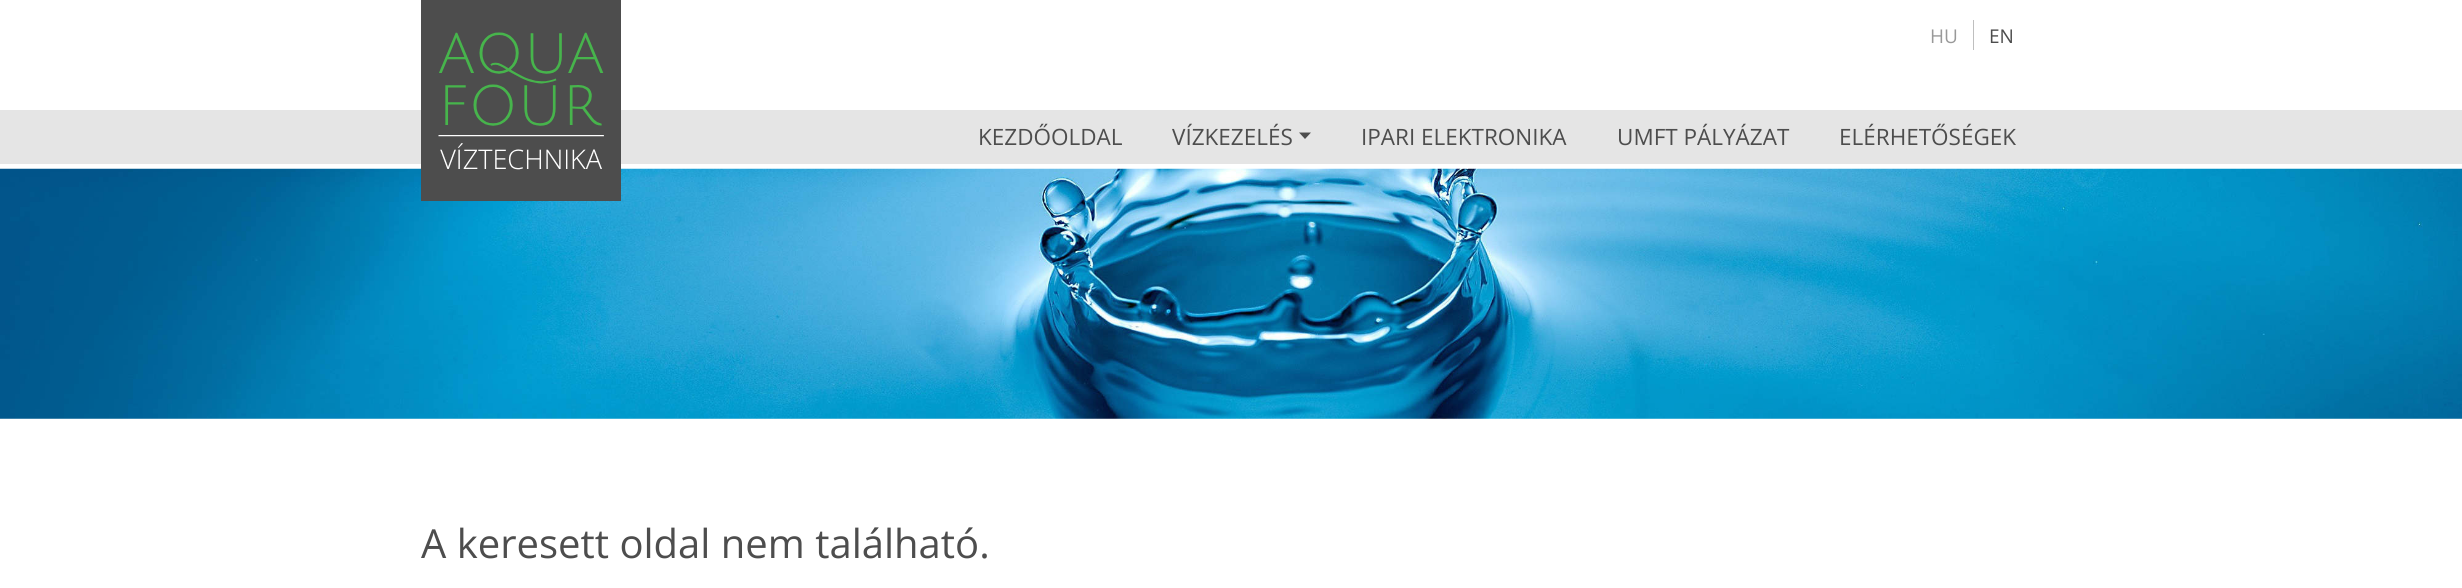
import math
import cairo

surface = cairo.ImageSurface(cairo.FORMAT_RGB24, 2462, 588)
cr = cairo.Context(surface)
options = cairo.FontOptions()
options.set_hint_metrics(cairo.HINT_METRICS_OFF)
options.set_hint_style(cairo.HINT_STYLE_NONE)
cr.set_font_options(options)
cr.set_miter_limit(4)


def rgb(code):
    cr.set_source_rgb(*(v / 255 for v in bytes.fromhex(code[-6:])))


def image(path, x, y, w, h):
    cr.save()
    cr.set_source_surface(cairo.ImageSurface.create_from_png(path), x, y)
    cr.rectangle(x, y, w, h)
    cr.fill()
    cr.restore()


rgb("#ffffff")
cr.paint()
rgb("#bfbfbf")
cr.rectangle(1973, 20, 1, 30)
cr.fill()
rgb("#e5e5e5")
cr.rectangle(0, 110, 2462, 54)
cr.fill()
image("img/2.png", 0, 168, 2462, 251)
rgb("#4d4d4d")
cr.rectangle(421, 0, 200, 201)
cr.fill()
image("img/1.png", 438, 32, 166, 138)
cr.new_path()
cr.move_to(1299, 132.5)
cr.line_to(1311, 132.5)
cr.line_to(1305, 139)
cr.close_path()
cr.fill()
cr.select_font_face("Open Sans")
cr.set_font_size(19)
rgb("#999999")
cr.move_to(1930, 43)
cr.show_text("HU")
rgb("#4d4d4d")
cr.move_to(1989, 43)
cr.show_text("EN")
cr.set_font_size(22.5)
for x, y, s in [
    (978, 145, "KEZDŐOLDAL"),
    (1172, 145, "VÍZKEZELÉS"),
    (1361, 145, "IPARI ELEKTRONIKA"),
    (1617, 145, "UMFT PÁLYÁZAT"),
    (1839, 145, "ELÉRHETŐSÉGEK"),
]:
    cr.move_to(x, y)
    cr.show_text(s)
cr.set_font_size(40)
cr.move_to(421, 558)
cr.show_text("A keresett oldal nem található.")
surface.write_to_png("page.png")
